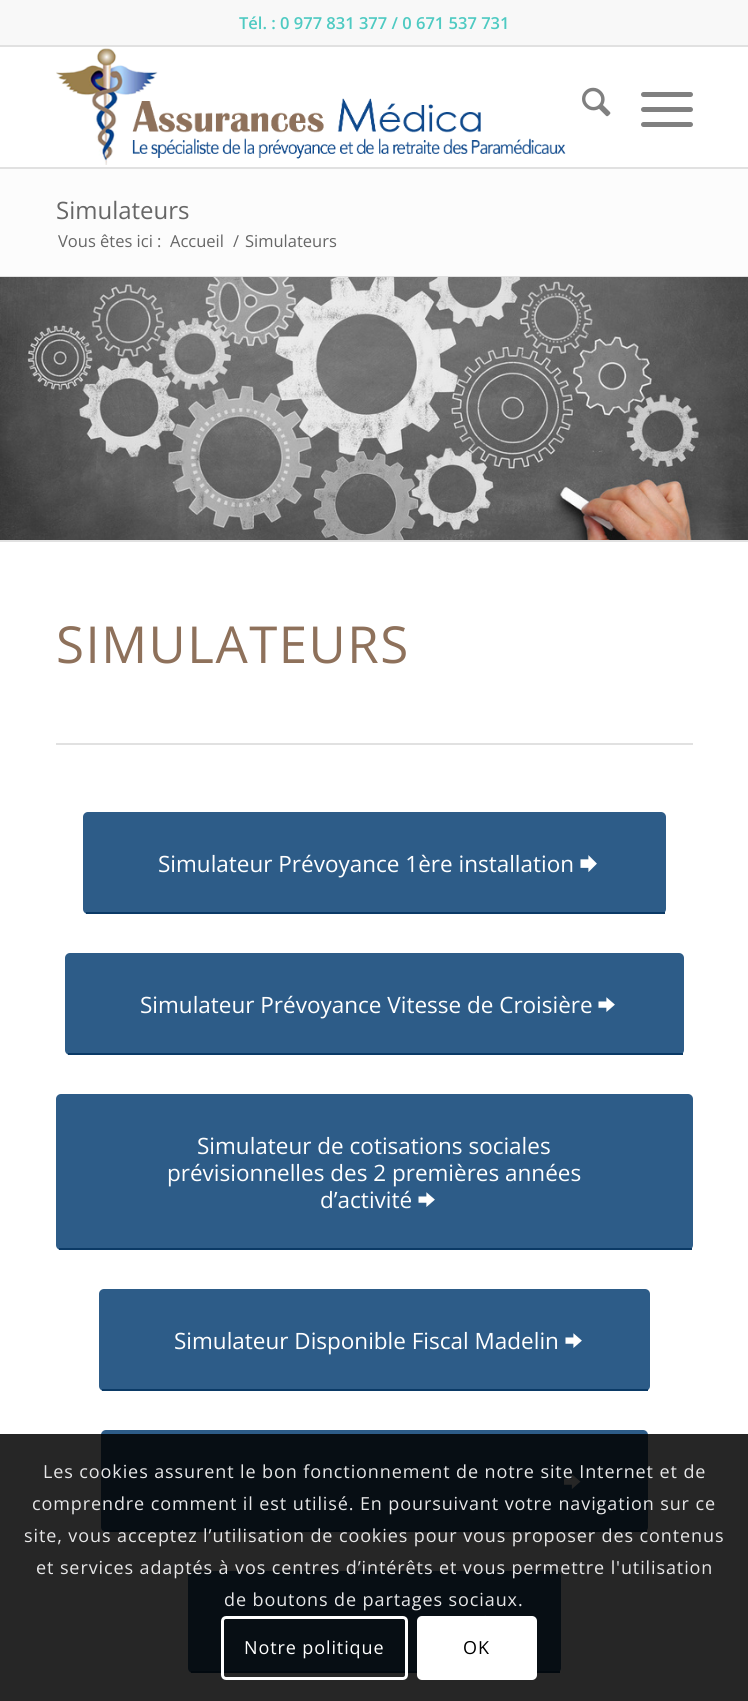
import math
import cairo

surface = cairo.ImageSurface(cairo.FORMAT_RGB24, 748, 1701)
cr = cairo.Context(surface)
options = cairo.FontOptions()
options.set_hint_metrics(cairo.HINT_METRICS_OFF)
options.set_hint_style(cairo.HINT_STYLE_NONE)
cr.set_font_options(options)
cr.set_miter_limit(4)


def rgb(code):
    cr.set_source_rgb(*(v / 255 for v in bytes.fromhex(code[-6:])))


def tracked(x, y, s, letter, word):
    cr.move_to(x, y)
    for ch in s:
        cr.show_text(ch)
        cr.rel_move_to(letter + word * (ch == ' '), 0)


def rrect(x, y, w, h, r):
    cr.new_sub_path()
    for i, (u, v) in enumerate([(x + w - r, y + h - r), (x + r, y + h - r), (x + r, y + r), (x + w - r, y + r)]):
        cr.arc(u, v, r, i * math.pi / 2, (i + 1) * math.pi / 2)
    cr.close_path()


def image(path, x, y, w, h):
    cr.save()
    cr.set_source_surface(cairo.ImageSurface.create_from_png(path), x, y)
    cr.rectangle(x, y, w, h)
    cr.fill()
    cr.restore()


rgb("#ffffff")
cr.paint()
for x, y, w, h, color in [
    (0, 0, 748, 45, "#f8f8f8"),
    (0, 45, 748, 2, "#e1e1e1"),
    (0, 167, 748, 2, "#e1e1e1"),
]:
    rgb(color)
    cr.rectangle(x, y, w, h)
    cr.fill()
image("img/1.png", 56, 48, 510, 117)
image("img/2.png", 582, 87, 29, 30)
rgb("#808080")
rrect(641, 107, 52, 5, 2.5)
cr.fill()
rrect(641, 92, 52, 5, 2.5)
cr.fill()
rrect(641, 122, 52, 5, 2.5)
cr.fill()
rgb("#fcfcfc")
cr.rectangle(0, 169, 748, 107)
cr.fill()
rgb("#e1e1e1")
cr.rectangle(0, 276, 748, 1)
cr.fill()
image("img/3.png", 0, 277, 748, 263)
cr.rectangle(0, 540, 748, 2)
cr.fill()
cr.rectangle(56, 743, 637, 2)
cr.fill()
rgb("#2d5c88")
rrect(83, 812, 583, 102, 5)
cr.fill()
rgb("#0b3a66")
cr.rectangle(86, 912, 579, 2)
cr.fill()
image("img/4.png", 580, 855, 17, 17)
rgb("#2d5c88")
rrect(65, 953, 619, 102, 5)
cr.fill()
rgb("#0b3a66")
cr.rectangle(68, 1053, 615, 2)
cr.fill()
image("img/5.png", 598, 997, 17, 15)
rgb("#2d5c88")
rrect(56, 1094, 637, 156, 5)
cr.fill()
rgb("#0b3a66")
cr.rectangle(59, 1248, 633, 2)
cr.fill()
image("img/5.png", 418, 1192, 17, 15)
rgb("#2d5c88")
rrect(99, 1289, 551, 102, 5)
cr.fill()
rgb("#0b3a66")
cr.rectangle(102, 1389, 546, 2)
cr.fill()
image("img/5.png", 565, 1333, 17, 15)
rgb("#2d5c88")
rrect(101, 1430, 547, 102, 5)
cr.fill()
rgb("#0b3a66")
cr.rectangle(104, 1530, 543, 2)
cr.fill()
image("img/6.png", 564, 1474, 17, 15)
rgb("#2d5c88")
rrect(188, 1571, 373, 102, 5)
cr.fill()
rgb("#0b3a66")
cr.rectangle(191, 1671, 369, 2)
cr.fill()
image("img/7.png", 484, 1615, 2, 1)
cr.set_source_rgba(0, 0, 0, 0.85)
cr.rectangle(0, 1434, 748, 267)
cr.fill()
rrect(222.5, 1617.5, 184, 61, 3.5)
rgb("#ffffff")
cr.set_line_width(3)
cr.stroke()
rrect(417, 1616, 120, 64, 5)
cr.fill()
cr.select_font_face("Open Sans SemiBold")
cr.set_font_size(16.5)
rgb("#4ecac2")
cr.move_to(239, 29)
cr.show_text("Tél. : 0 977 831 377 / 0 671 537 731")
cr.select_font_face("Open Sans")
cr.set_font_size(24)
rgb("#666666")
cr.move_to(56, 219)
cr.show_text("Simulateurs")
cr.set_font_size(16.5)
for x, y, s in [
    (58, 247, "Vous êtes ici :"),
    (170, 247, "Accueil"),
    (233, 247, "/"),
    (245, 247, "Simulateurs"),
]:
    cr.move_to(x, y)
    cr.show_text(s)
cr.set_font_size(51)
rgb("#8e715b")
tracked(56, 663, "SIMULATEURS", 1.5, 0)
cr.set_font_size(22.5)
rgb("#ffffff")
for x, y, s in [
    (158, 872, "Simulateur Prévoyance 1ère installation"),
    (140, 1013, "Simulateur Prévoyance Vitesse de Croisière"),
    (197, 1154, "Simulateur de cotisations sociales"),
    (167, 1181, "prévisionnelles des 2 premières années"),
    (320, 1208, "d’activité"),
    (174, 1349, "Simulateur Disponible Fiscal Madelin"),
]:
    cr.move_to(x, y)
    cr.show_text(s)
cr.set_font_size(18)
rgb("#e7e7e8")
for x, y, s in [
    (43, 1478, "Les cookies assurent le bon fonctionnement de notre site Internet et de"),
    (32, 1510, "comprendre comment il est utilisé. En poursuivant votre navigation sur ce"),
    (24, 1542, "site, vous acceptez l’utilisation de cookies pour vous proposer des contenus"),
    (36, 1574, "et services adaptés à vos centres d’intérêts et vous permettre l'utilisation"),
    (224, 1606, "de boutons de partages sociaux."),
]:
    tracked(x, y, s, 0.9, 0)
rgb("#ffffff")
tracked(244, 1654, "Notre politique", 0.9, 0)
rgb("#000000")
tracked(463, 1654, "OK", 0.9, 0)
surface.write_to_png("page.png")
